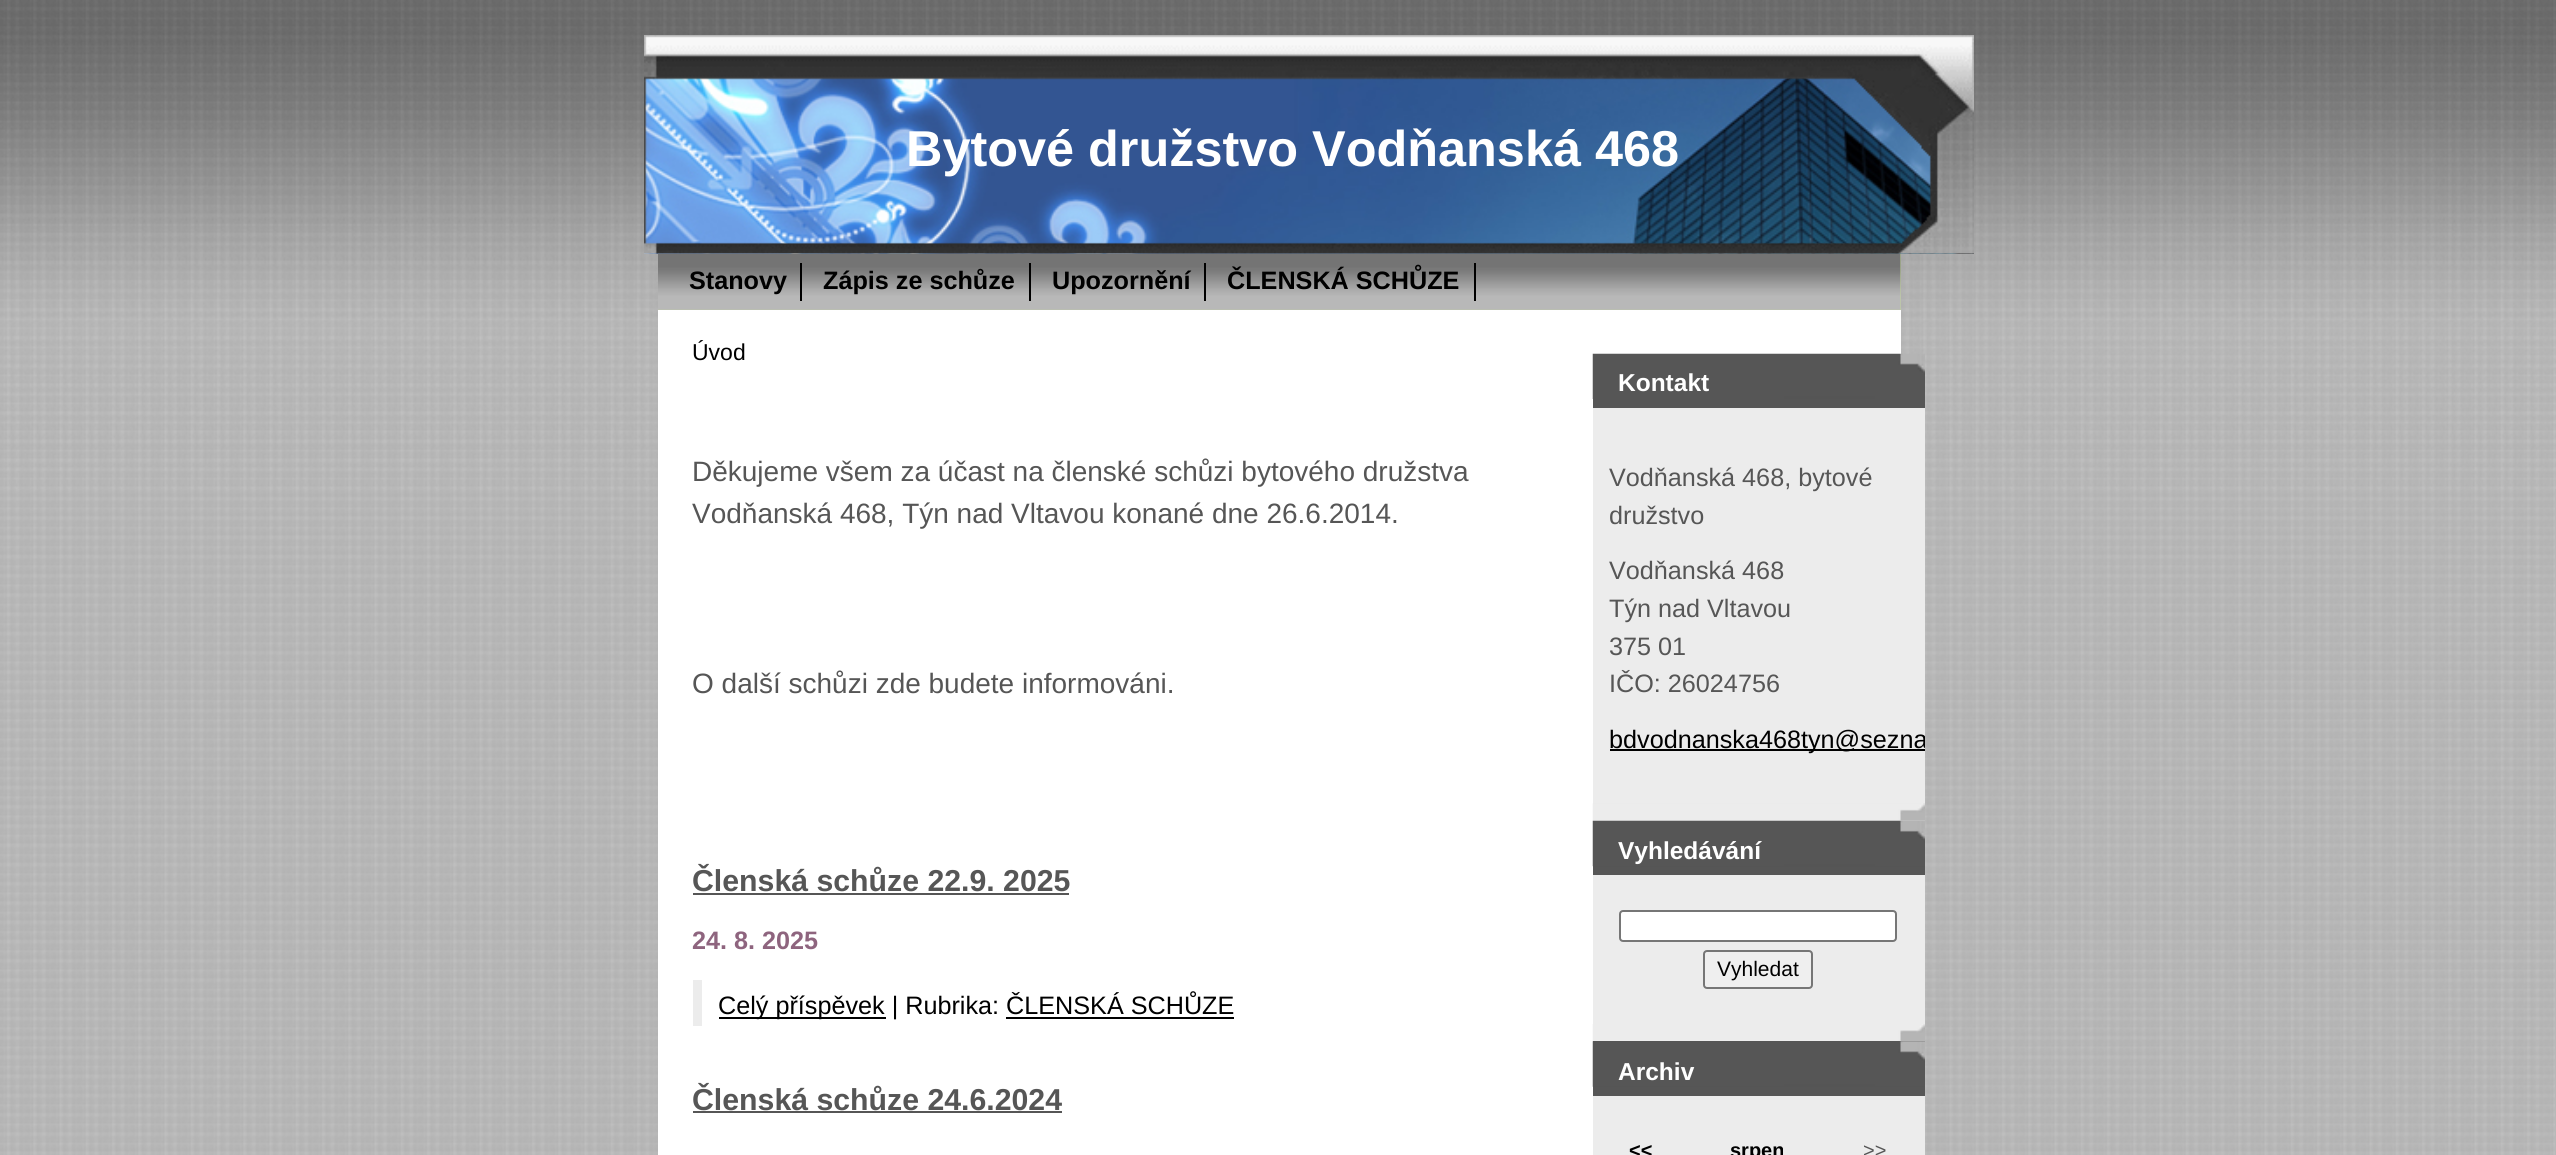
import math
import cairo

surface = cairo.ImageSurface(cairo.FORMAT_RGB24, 2556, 1155)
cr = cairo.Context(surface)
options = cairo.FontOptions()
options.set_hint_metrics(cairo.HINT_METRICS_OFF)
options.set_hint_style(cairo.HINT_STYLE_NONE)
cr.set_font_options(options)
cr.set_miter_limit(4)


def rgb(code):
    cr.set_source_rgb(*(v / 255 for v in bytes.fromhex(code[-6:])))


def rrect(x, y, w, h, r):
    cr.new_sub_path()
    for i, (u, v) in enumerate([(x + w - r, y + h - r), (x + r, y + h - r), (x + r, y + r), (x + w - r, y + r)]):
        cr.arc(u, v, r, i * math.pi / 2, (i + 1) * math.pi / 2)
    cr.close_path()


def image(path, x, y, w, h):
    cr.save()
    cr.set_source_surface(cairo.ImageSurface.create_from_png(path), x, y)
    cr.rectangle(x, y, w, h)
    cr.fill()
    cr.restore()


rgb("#b9b9b9")
cr.paint()
image("img/1.png", 0, 489, 2555, 666)
image("img/2.png", 0, 0, 2556, 489)
rgb("#ffffff")
cr.rectangle(658, 253, 1243, 902)
cr.fill()
image("img/3.png", 644, 78, 1330, 176)
image("img/4.png", 644, 35, 1330, 219)
rgb("#c1d39c")
cr.rectangle(658, 254, 1243, 56)
cr.fill()
image("img/5.png", 658, 253, 1243, 57)
for x, y, w, h, color in [
    (800, 263, 2, 38, "#000000"),
    (1029, 263, 2, 38, "#000000"),
    (1204, 263, 2, 38, "#000000"),
    (1474, 263, 2, 38, "#000000"),
    (693, 893, 376, 2, "#565656"),
    (693, 980, 9, 46, "#ececec"),
    (719, 1017, 167, 2, "#000000"),
    (1006, 1017, 228, 2, "#000000"),
    (693, 1111, 369, 2, "#565656"),
    (1593, 408, 332, 747, "#ececec"),
    (1593, 399, 332, 9, "#565656"),
]:
    rgb(color)
    cr.rectangle(x, y, w, h)
    cr.fill()
image("img/6.png", 1592, 353, 333, 46)
image("img/7.png", 1592, 803, 333, 18)
rgb("#000000")
cr.rectangle(1610, 749, 315, 2)
cr.fill()
rgb("#565656")
cr.rectangle(1593, 866, 332, 9)
cr.fill()
image("img/8.png", 1592, 820, 333, 47)
image("img/9.png", 1592, 1024, 333, 18)
rgb("#ffffff")
rrect(1620, 911, 276, 30, 3)
cr.fill_preserve()
rgb("#767676")
cr.stroke()
rgb("#efefef")
rrect(1704, 951, 108, 37, 3)
cr.fill_preserve()
rgb("#767676")
cr.stroke()
rgb("#565656")
cr.rectangle(1593, 1041, 332, 55)
cr.fill()
image("img/10.png", 1592, 1041, 333, 46)
cr.select_font_face("Liberation Sans", cairo.FONT_SLANT_NORMAL, cairo.FONT_WEIGHT_BOLD)
cr.set_font_size(50.4)
rgb("#ffffff")
cr.move_to(906, 166)
cr.show_text("Bytové družstvo Vodňanská 468")
cr.set_font_size(25.2)
rgb("#000000")
for x, y, s in [
    (689, 289, "Stanovy"),
    (823, 289, "Zápis ze schůze"),
    (1052, 289, "Upozornění"),
    (1227, 289, "ČLENSKÁ SCHŮZE"),
]:
    cr.move_to(x, y)
    cr.show_text(s)
cr.select_font_face("Liberation Sans")
cr.set_font_size(23)
cr.move_to(692, 360)
cr.show_text("Úvod")
cr.set_font_size(28)
rgb("#565656")
for x, y, s in [
    (692, 481, "Děkujeme všem za účast na členské schůzi bytového družstva"),
    (692, 523, "Vodňanská 468, Týn nad Vltavou konané dne 26.6.2014."),
    (692, 693, "O další schůzi zde budete informováni."),
]:
    cr.move_to(x, y)
    cr.show_text(s)
cr.select_font_face("Liberation Sans", cairo.FONT_SLANT_NORMAL, cairo.FONT_WEIGHT_BOLD)
cr.set_font_size(30.25)
cr.move_to(692, 891)
cr.show_text("Členská schůze 22.9. 2025")
cr.set_font_size(25.2)
rgb("#8e647e")
cr.move_to(692, 949)
cr.show_text("24. 8. 2025")
cr.select_font_face("Liberation Sans")
rgb("#000000")
cr.move_to(718, 1014)
cr.show_text("Celý příspěvek | Rubrika: ČLENSKÁ SCHŮZE")
cr.select_font_face("Liberation Sans", cairo.FONT_SLANT_NORMAL, cairo.FONT_WEIGHT_BOLD)
cr.set_font_size(30.25)
rgb("#565656")
cr.move_to(692, 1110)
cr.show_text("Členská schůze 24.6.2024")
cr.set_font_size(24.5)
rgb("#ffffff")
cr.move_to(1618, 391)
cr.show_text("Kontakt")
cr.select_font_face("Liberation Sans")
cr.set_font_size(25.2)
rgb("#565656")
for x, y, s in [
    (1609, 486, "Vodňanská 468, bytové"),
    (1609, 524, "družstvo"),
    (1609, 579, "Vodňanská 468"),
    (1609, 617, "Týn nad Vltavou"),
    (1609, 655, "375 01"),
    (1609, 692, "IČO: 26024756"),
]:
    cr.move_to(x, y)
    cr.show_text(s)
cr.save()
cr.rectangle(1593, 354, 332, 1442)
cr.clip()
rgb("#000000")
cr.move_to(1609, 748)
cr.show_text("bdvodnanska468tyn@sezna")
cr.restore()
cr.select_font_face("Liberation Sans", cairo.FONT_SLANT_NORMAL, cairo.FONT_WEIGHT_BOLD)
cr.set_font_size(24.5)
rgb("#ffffff")
cr.move_to(1618, 859)
cr.show_text("Vyhledávání")
cr.select_font_face("Liberation Sans")
cr.set_font_size(21)
rgb("#000000")
cr.move_to(1717, 976)
cr.show_text("Vyhledat")
cr.select_font_face("Liberation Sans", cairo.FONT_SLANT_NORMAL, cairo.FONT_WEIGHT_BOLD)
cr.set_font_size(24.5)
rgb("#ffffff")
cr.move_to(1618, 1080)
cr.show_text("Archiv")
cr.set_font_size(20)
rgb("#000000")
cr.move_to(1629, 1157)
cr.show_text("<<")
cr.move_to(1730, 1157)
cr.show_text("srpen")
cr.select_font_face("Liberation Sans")
rgb("#565656")
cr.move_to(1863, 1157)
cr.show_text(">>")
surface.write_to_png("page.png")
